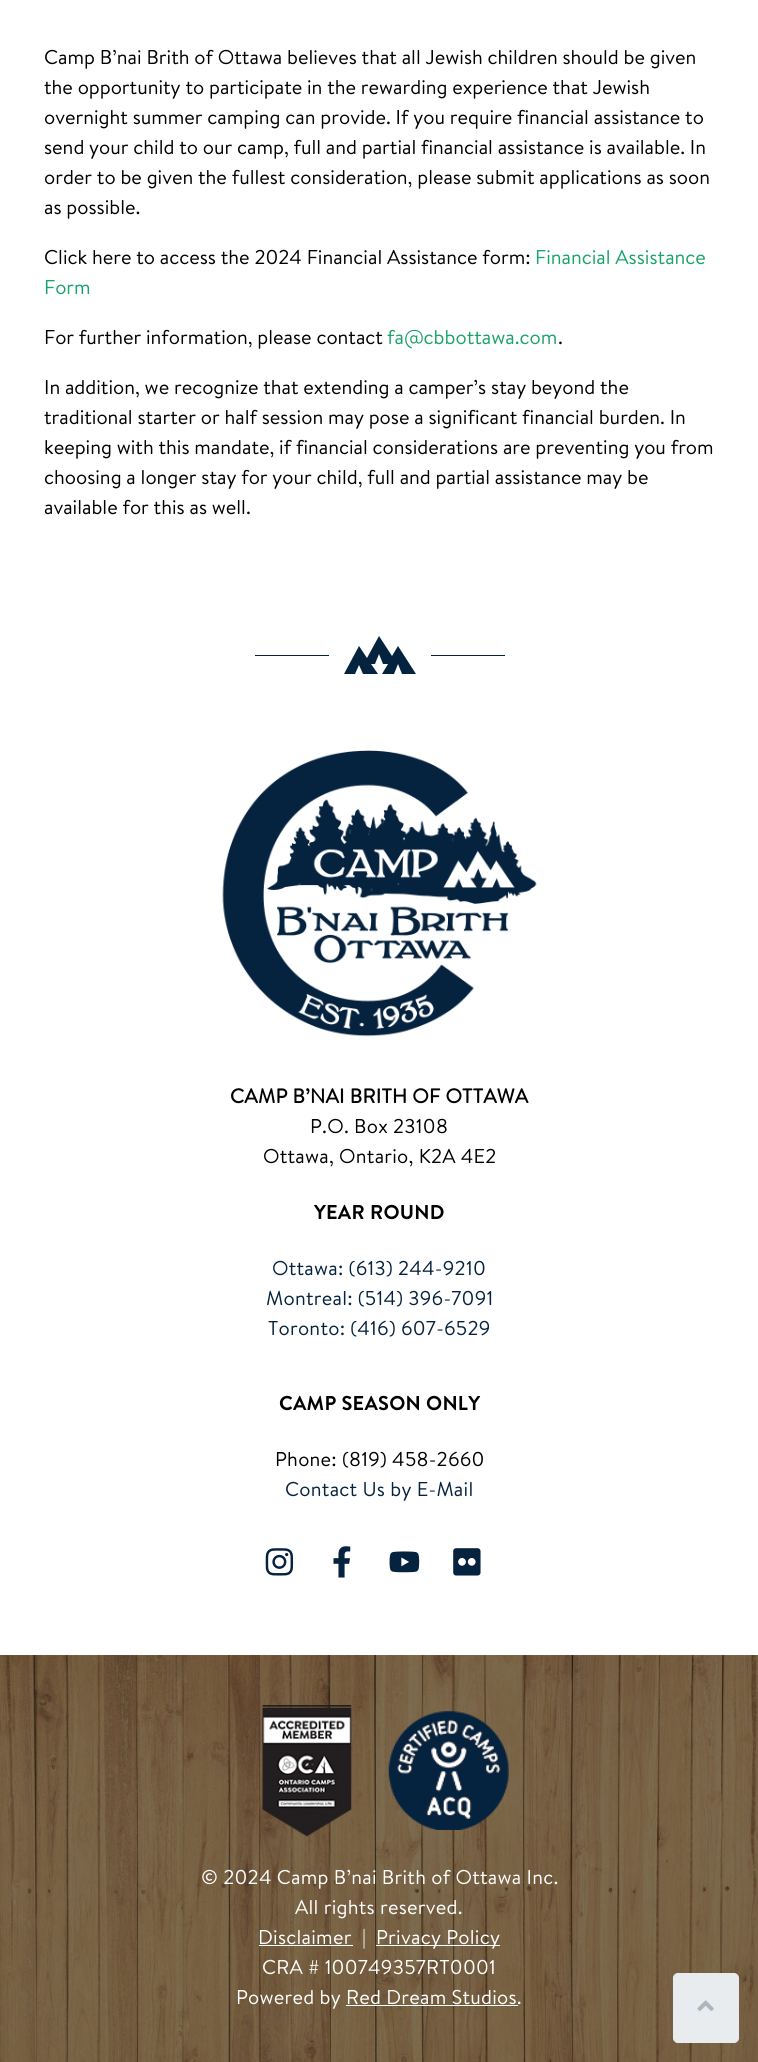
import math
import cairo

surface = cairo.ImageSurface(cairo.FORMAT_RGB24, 758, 2062)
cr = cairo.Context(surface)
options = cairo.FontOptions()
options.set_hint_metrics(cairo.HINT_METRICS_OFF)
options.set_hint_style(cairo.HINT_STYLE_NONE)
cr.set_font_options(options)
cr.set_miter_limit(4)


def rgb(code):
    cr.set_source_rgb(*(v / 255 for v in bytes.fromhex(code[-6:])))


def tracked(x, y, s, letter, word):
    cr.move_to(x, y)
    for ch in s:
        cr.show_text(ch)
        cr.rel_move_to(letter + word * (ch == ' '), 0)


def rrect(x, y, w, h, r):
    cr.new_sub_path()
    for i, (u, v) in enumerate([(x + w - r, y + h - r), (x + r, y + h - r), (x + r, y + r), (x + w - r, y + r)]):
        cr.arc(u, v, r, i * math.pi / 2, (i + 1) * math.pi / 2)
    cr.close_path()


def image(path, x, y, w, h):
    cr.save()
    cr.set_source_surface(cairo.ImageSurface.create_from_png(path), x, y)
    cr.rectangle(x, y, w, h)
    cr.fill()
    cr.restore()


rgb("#ffffff")
cr.paint()
rgb("#05223e")
cr.rectangle(255, 655, 74, 1)
cr.fill()
rgb("#03233e")
cr.set_fill_rule(cairo.FILL_RULE_EVEN_ODD)
cr.new_path()
cr.move_to(392, 656)
cr.line_to(398, 646)
cr.line_to(416, 674)
cr.line_to(402, 674)
cr.line_to(398, 664)
cr.line_to(394, 674)
cr.line_to(382, 674)
cr.line_to(388, 664)
cr.line_to(383, 664)
cr.line_to(379, 654)
cr.line_to(375, 664)
cr.line_to(371, 664)
cr.line_to(378, 674)
cr.line_to(363, 674)
cr.line_to(359, 665)
cr.line_to(355, 674)
cr.line_to(344, 674)
cr.line_to(359, 646)
cr.line_to(367, 658)
cr.line_to(379, 636)
cr.fill()
rgb("#05223e")
cr.rectangle(431, 655, 74, 1)
cr.fill()
image("img/1.png", 222, 750, 315, 287)
image("img/2.png", 265, 1548, 29, 28)
image("img/3.png", 333, 1546, 18, 32)
image("img/4.png", 389, 1551, 31, 22)
image("img/5.png", 453, 1548, 28, 28)
image("img/6.png", 0, 1655, 758, 407)
image("img/7.png", 262, 1705, 90, 132)
image("img/8.png", 388, 1711, 121, 119)
for x, y, w, h, color in [
    (259, 1945, 94, 1, "#ffffff"),
    (376, 1945, 124, 1, "#ffffff"),
    (346, 2005, 172, 1, "#ffffff"),
]:
    rgb(color)
    cr.rectangle(x, y, w, h)
    cr.fill()
rgb("#e9ecef")
rrect(673.5, 1973.5, 65, 69, 4.5)
cr.fill_preserve()
cr.set_line_width(1)
cr.stroke()
image("img/9.png", 697, 2000, 17, 11)
cr.select_font_face("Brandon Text")
cr.set_font_size(20)
rgb("#000000")
for x, y, s in [
    (44, 64, "Camp B’nai Brith of Ottawa believes that all Jewish children should be given"),
    (44, 94, "the opportunity to participate in the rewarding experience that Jewish"),
    (44, 124, "overnight summer camping can provide. If you require financial assistance to"),
    (44, 154, "send your child to our camp, full and partial financial assistance is available. In"),
    (44, 184, "order to be given the fullest consideration, please submit applications as soon"),
    (44, 214, "as possible."),
    (44, 264, "Click here to access the 2024 Financial Assistance form:"),
]:
    cr.move_to(x, y)
    cr.show_text(s)
rgb("#18a36a")
cr.move_to(535, 264)
cr.show_text("Financial Assistance")
cr.move_to(44, 294)
cr.show_text("Form")
rgb("#000000")
cr.move_to(44, 344)
cr.show_text("For further information, please contact")
rgb("#18a36a")
cr.move_to(387, 344)
cr.show_text("fa@cbbottawa.com")
rgb("#000000")
for x, y, s in [
    (558, 344, "."),
    (44, 394, "In addition, we recognize that extending a camper’s stay beyond the"),
    (44, 424, "traditional starter or half session may pose a significant financial burden. In"),
    (44, 454, "keeping with this mandate, if financial considerations are preventing you from"),
    (44, 484, "choosing a longer stay for your child, full and partial assistance may be"),
    (44, 514, "available for this as well."),
]:
    cr.move_to(x, y)
    cr.show_text(s)
cr.select_font_face("Brandon Text", cairo.FONT_SLANT_NORMAL, cairo.FONT_WEIGHT_BOLD)
tracked(230, 1103, "CAMP B’NAI BRITH OF OTTAWA", 0.25, 0)
cr.select_font_face("Brandon Text")
tracked(310, 1133, "P.O. Box 23108", 0.25, 0)
tracked(263, 1163, "Ottawa, Ontario, K2A 4E2", 0.25, 0)
cr.select_font_face("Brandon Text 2", cairo.FONT_SLANT_NORMAL, cairo.FONT_WEIGHT_BOLD)
tracked(314, 1219, "YEAR ROUND", 0.25, 0)
cr.select_font_face("Brandon Text")
rgb("#05223e")
for x, y, s in [
    (272, 1275, "Ottawa: (613) 244-9210"),
    (266, 1305, "Montreal: (514) 396-7091"),
    (268, 1335, "Toronto: (416) 607-6529"),
]:
    tracked(x, y, s, 0.25, 0)
cr.select_font_face("Brandon Text 2", cairo.FONT_SLANT_NORMAL, cairo.FONT_WEIGHT_BOLD)
rgb("#000000")
tracked(279, 1410, "CAMP SEASON ONLY", 0.25, 0)
cr.select_font_face("Brandon Text")
tracked(275, 1466, "Phone: (819) 458-2660", 0.25, 0)
rgb("#05223e")
tracked(285, 1496, "Contact Us by E-Mail", 0.25, 0)
rgb("#ffffff")
for x, y, s in [
    (201, 1884, "© 2024 Camp B’nai Brith of Ottawa Inc."),
    (295, 1914, "All rights reserved."),
    (258, 1944, "Disclaimer"),
    (362, 1944, "|"),
    (376, 1944, "Privacy Policy"),
    (262, 1974, "CRA # 100749357RT0001"),
    (236, 2004, "Powered by Red Dream Studios."),
]:
    tracked(x, y, s, 0.25, 0)
surface.write_to_png("page.png")
